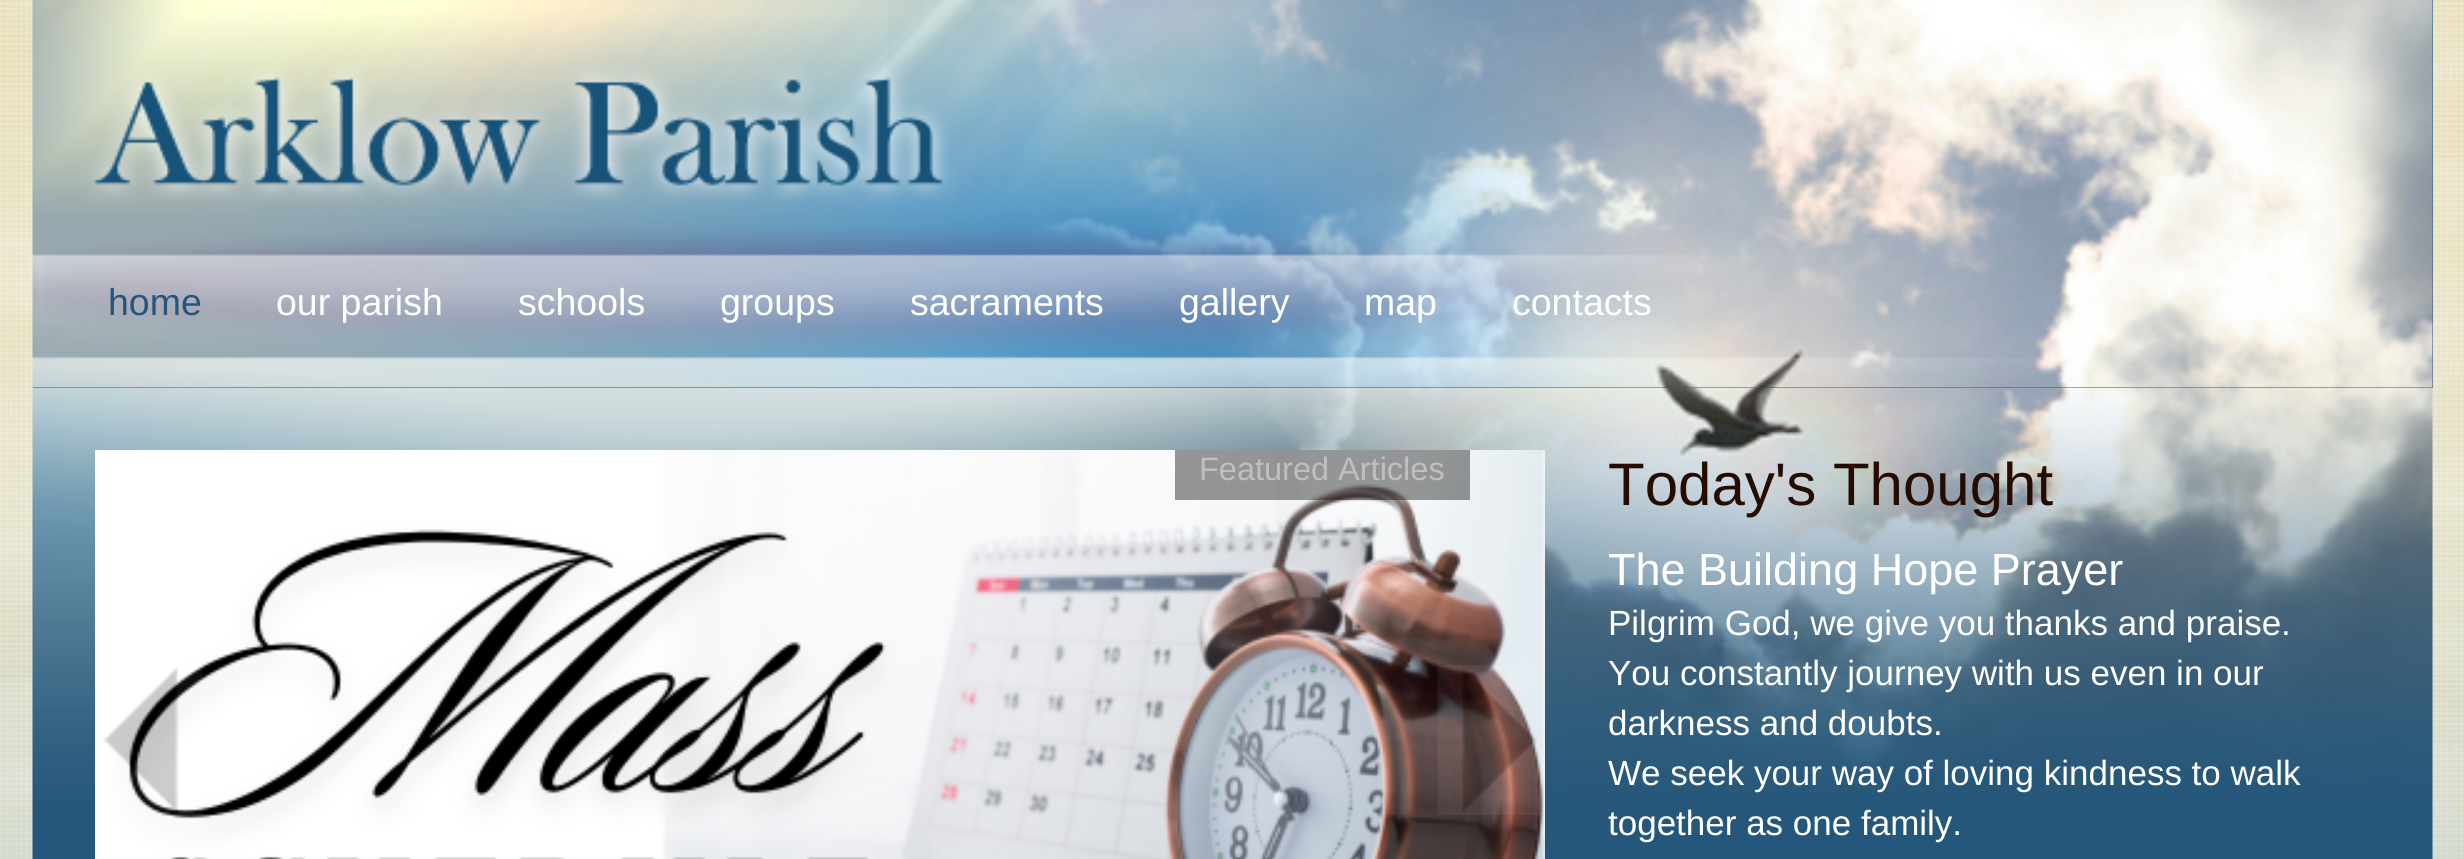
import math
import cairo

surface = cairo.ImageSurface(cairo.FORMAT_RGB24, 2464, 859)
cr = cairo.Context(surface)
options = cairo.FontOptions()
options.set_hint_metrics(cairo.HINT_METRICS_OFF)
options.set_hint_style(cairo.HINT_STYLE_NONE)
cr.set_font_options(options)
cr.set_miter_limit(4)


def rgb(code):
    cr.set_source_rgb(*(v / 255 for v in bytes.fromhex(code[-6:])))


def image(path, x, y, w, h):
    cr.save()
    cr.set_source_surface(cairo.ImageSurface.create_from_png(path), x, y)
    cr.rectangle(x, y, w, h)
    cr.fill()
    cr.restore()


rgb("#ffffff")
cr.paint()
image("img/1.png", 0, 0, 2464, 859)
image("img/3.png", 32, 387, 2401, 472)
rgb("#25577c")
cr.rectangle(33, 0, 2400, 388)
cr.fill()
image("img/2.png", 32, 0, 2401, 388)
image("img/4.png", 95, 450, 1450, 409)
cr.set_source_rgba(0, 0, 0, 0.4)
cr.rectangle(1175, 450, 295, 50)
cr.fill()
image("img/5.png", 102, 667, 101, 148)
image("img/6.png", 1437, 665, 106, 150)
cr.select_font_face("Liberation Sans")
cr.set_font_size(37.5)
rgb("#25577c")
cr.move_to(108, 315)
cr.show_text("home")
rgb("#ffffff")
for x, y, s in [
    (276, 315, "our parish"),
    (518, 315, "schools"),
    (720, 315, "groups"),
    (910, 315, "sacraments"),
    (1179, 315, "gallery"),
    (1364, 315, "map"),
    (1512, 315, "contacts"),
]:
    cr.move_to(x, y)
    cr.show_text(s)
cr.set_font_size(32.5)
rgb("#bfbfc0")
cr.move_to(1199, 480)
cr.show_text("Featured Articles")
cr.set_font_size(60)
rgb("#260c00")
cr.move_to(1608, 505)
cr.show_text("Today's Thought")
cr.set_font_size(45)
rgb("#ffffff")
cr.move_to(1608, 585)
cr.show_text("The Building Hope Prayer")
cr.set_font_size(35)
for x, y, s in [
    (1608, 635, "Pilgrim God, we give you thanks and praise."),
    (1608, 685, "You constantly journey with us even in our"),
    (1608, 735, "darkness and doubts."),
    (1608, 785, "We seek your way of loving kindness to walk"),
    (1608, 835, "together as one family."),
]:
    cr.move_to(x, y)
    cr.show_text(s)
surface.write_to_png("page.png")
